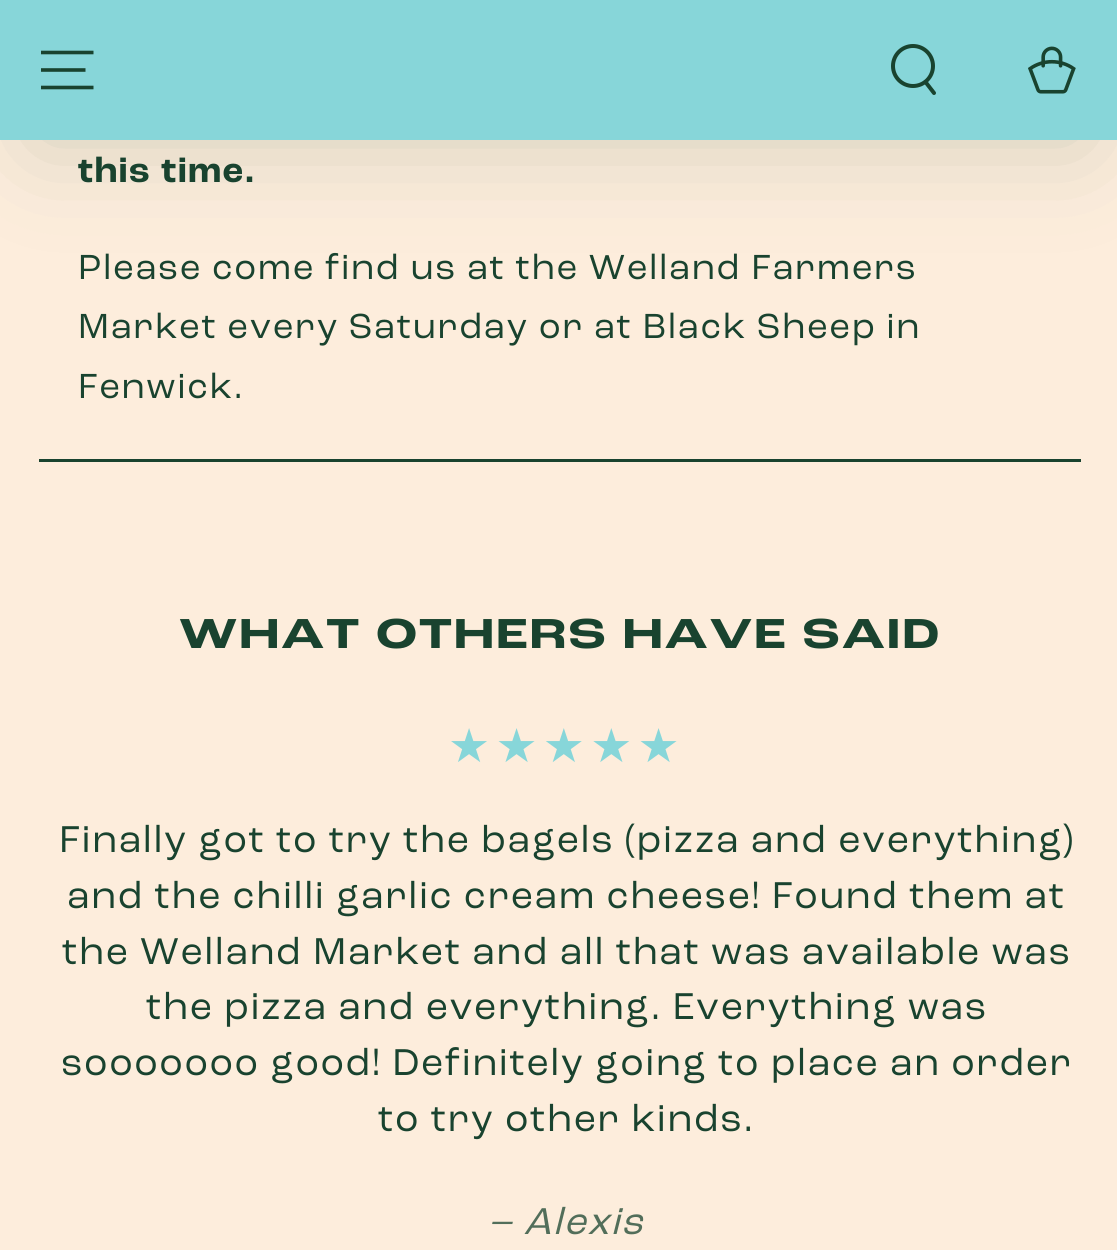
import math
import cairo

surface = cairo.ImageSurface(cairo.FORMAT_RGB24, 1117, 1250)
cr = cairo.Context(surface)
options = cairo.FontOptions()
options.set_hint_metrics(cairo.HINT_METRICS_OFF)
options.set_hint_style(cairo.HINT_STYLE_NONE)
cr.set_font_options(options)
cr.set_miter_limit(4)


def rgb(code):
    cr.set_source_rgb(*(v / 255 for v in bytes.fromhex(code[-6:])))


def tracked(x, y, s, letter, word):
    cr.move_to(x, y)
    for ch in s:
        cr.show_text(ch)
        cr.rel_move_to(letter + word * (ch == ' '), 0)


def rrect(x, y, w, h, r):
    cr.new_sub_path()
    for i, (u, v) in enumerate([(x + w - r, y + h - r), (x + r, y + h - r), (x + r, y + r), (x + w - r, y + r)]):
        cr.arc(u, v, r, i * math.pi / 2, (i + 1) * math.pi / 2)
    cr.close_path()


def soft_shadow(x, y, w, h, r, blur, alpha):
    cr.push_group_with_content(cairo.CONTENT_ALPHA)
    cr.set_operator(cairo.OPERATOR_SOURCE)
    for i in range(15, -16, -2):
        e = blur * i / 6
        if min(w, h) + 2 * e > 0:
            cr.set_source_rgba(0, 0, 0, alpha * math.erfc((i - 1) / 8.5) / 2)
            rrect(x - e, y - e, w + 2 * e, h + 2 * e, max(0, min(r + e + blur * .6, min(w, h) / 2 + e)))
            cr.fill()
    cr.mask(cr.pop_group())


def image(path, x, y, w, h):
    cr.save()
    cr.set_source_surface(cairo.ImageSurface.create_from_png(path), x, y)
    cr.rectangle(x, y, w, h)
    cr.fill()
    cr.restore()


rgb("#fdeddc")
cr.paint()
rgb("#19432f")
soft_shadow(39, 88, 1042, 52, 26, 52, 0.2)
rgb("#87d6d9")
cr.rectangle(0, 0, 1117, 140)
cr.fill()
cr.new_path()
cr.move_to(41, 87.5)
cr.line_to(93.5, 87.5)
cr.move_to(41, 70)
cr.line_to(85.5, 70)
cr.move_to(41, 52.5)
cr.line_to(93.5, 52.5)
rgb("#19432f")
cr.set_line_width(3.6)
cr.stroke()
cr.arc(913, 66, 20, 0, 2 * math.pi)
cr.set_line_width(4)
cr.stroke()
cr.new_path()
cr.move_to(925.5, 82)
cr.line_to(934, 93)
cr.set_line_cap(cairo.LINE_CAP_ROUND)
cr.stroke()
image("img/1.png", 1028, 46, 48, 48)
cr.rectangle(39, 459, 1042, 3)
cr.fill()
cr.select_font_face("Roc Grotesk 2", cairo.FONT_SLANT_NORMAL, cairo.FONT_WEIGHT_BOLD)
cr.set_font_size(36.6)
tracked(78, 182, "this time.", 1.57, 0)
cr.select_font_face("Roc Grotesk")
for x, y, s in [
    (78, 279, "Please come find us at the Welland Farmers"),
    (78, 338, "Market every Saturday or at Black Sheep in"),
    (78, 398, "Fenwick."),
]:
    tracked(x, y, s, 1.57, 0)
cr.select_font_face("Roc Grotesk", cairo.FONT_SLANT_NORMAL, cairo.FONT_WEIGHT_BOLD)
cr.set_font_size(44)
tracked(179, 648, "WHAT OTHERS HAVE SAID", 1.65, 0)
cr.select_font_face("DejaVu Sans")
cr.set_font_size(47)
gradient = cairo.LinearGradient(448, 747, 685, 747)
gradient.add_color_stop_rgba(1, 0.529, 0.839, 0.851, 1)
gradient.add_color_stop_rgba(1, 0.859, 0.831, 0.761, 1)
cr.set_source(gradient)
tracked(448, 762, "★★★★★", 5.25, 0)
cr.select_font_face("Roc Grotesk")
cr.set_font_size(39.2)
rgb("#19432f")
for x, y, s in [
    (59, 852, "Finally got to try the bagels (pizza and everything)"),
    (67, 908, "and the chilli garlic cream cheese! Found them at"),
    (62, 964, "the Welland Market and all that was available was"),
    (146, 1019, "the pizza and everything. Everything was"),
    (61, 1075, "sooooooo good! Definitely going to place an order"),
    (378, 1131, "to try other kinds."),
]:
    tracked(x, y, s, 1.57, 0)
cr.select_font_face("Roc Grotesk", cairo.FONT_SLANT_ITALIC)
rgb("#526e5a")
tracked(488, 1234, "– Alexis", 1.57, 0)
surface.write_to_png("page.png")
